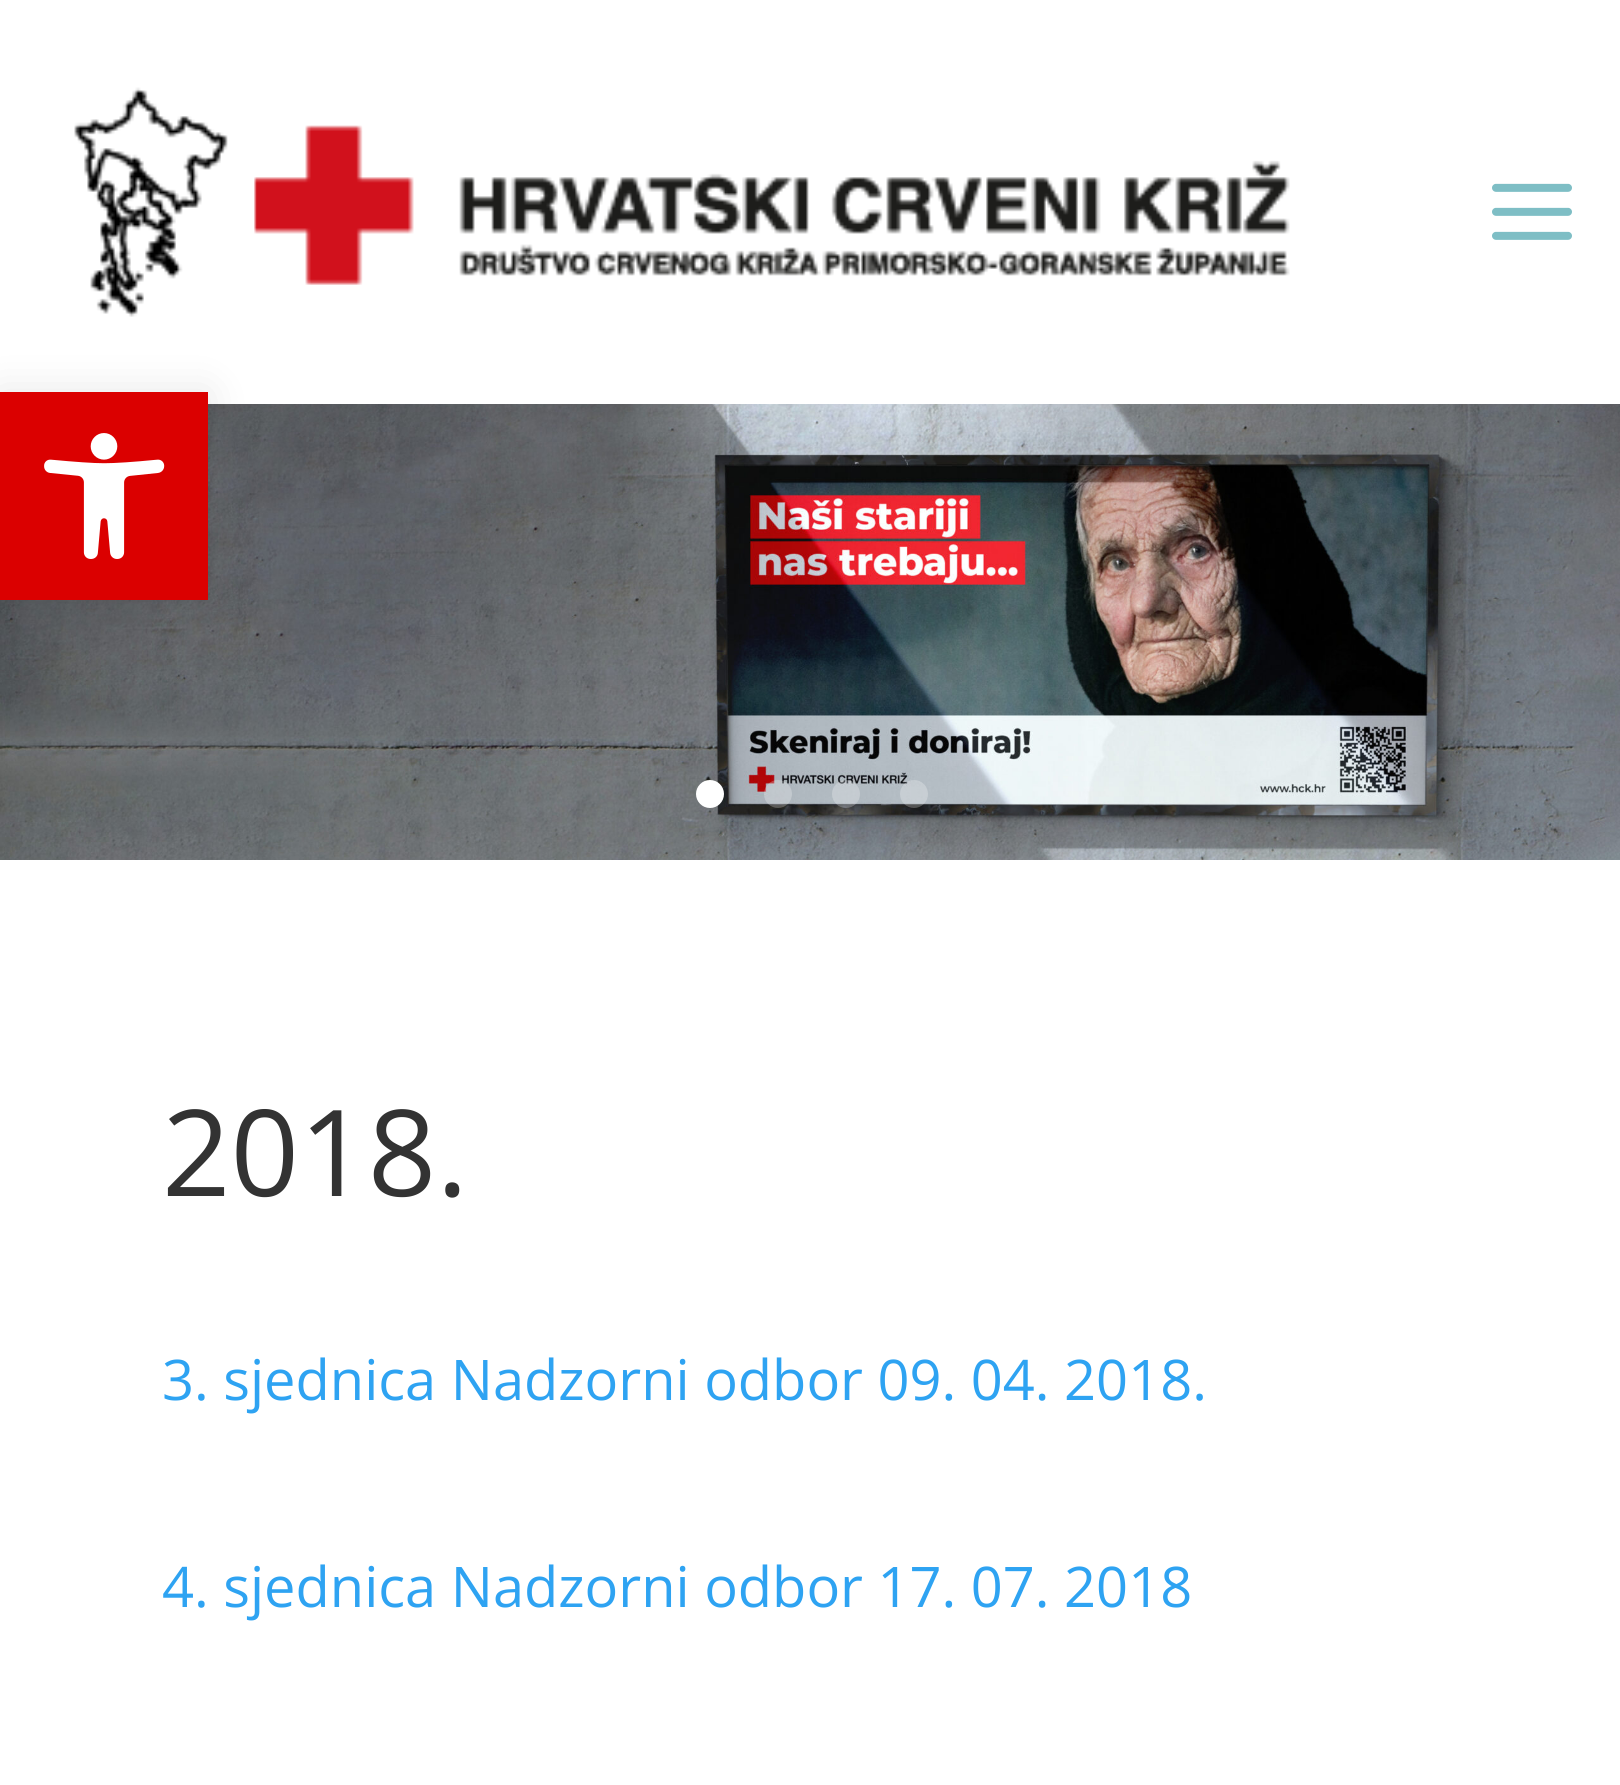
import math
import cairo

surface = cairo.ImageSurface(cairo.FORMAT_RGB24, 1620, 1785)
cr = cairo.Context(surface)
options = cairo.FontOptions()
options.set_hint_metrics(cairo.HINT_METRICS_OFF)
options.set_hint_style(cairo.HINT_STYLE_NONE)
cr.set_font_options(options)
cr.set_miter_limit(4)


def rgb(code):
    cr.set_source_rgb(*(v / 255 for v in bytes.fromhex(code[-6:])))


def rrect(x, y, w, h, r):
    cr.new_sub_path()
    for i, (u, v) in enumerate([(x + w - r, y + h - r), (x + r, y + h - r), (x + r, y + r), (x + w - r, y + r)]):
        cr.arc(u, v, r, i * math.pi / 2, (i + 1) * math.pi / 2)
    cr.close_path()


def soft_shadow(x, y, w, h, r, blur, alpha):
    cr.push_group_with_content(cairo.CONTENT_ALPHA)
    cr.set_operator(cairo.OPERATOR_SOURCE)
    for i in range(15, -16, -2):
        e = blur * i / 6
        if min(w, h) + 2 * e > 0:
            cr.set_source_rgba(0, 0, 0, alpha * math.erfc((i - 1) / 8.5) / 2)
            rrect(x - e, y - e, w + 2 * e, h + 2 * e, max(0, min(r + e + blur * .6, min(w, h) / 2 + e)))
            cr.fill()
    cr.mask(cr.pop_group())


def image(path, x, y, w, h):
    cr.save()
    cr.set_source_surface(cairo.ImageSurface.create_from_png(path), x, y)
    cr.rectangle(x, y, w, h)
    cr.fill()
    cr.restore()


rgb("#ffffff")
cr.paint()
image("img/4.png", 0, 404, 1620, 456)
rgb("#000000")
soft_shadow(0, 392, 208, 208, 0, 20, 0.1)
rgb("#db0000")
cr.rectangle(0, 392, 208, 208)
cr.fill()
image("img/1.png", 44, 433, 121, 126)
image("img/2.png", 74, 87, 1216, 230)
image("img/3.png", 1492, 183, 80, 57)
rgb("#ffffff")
cr.arc(710, 794, 14, 0, 2 * math.pi)
cr.fill()
cr.set_source_rgba(1, 1, 1, 0.25)
cr.arc(778, 794, 14, 0, 2 * math.pi)
cr.fill()
cr.arc(846, 794, 14, 0, 2 * math.pi)
cr.fill()
cr.arc(914, 794, 14, 0, 2 * math.pi)
cr.fill()
cr.select_font_face("Open Sans")
cr.set_font_size(120)
rgb("#333333")
cr.move_to(162, 1196)
cr.show_text("2018.")
cr.set_font_size(56)
rgb("#2ea3f2")
cr.move_to(162, 1400)
cr.show_text("3. sjednica Nadzorni odbor 09. 04. 2018.")
cr.move_to(162, 1607)
cr.show_text("4. sjednica Nadzorni odbor 17. 07. 2018")
surface.write_to_png("page.png")
